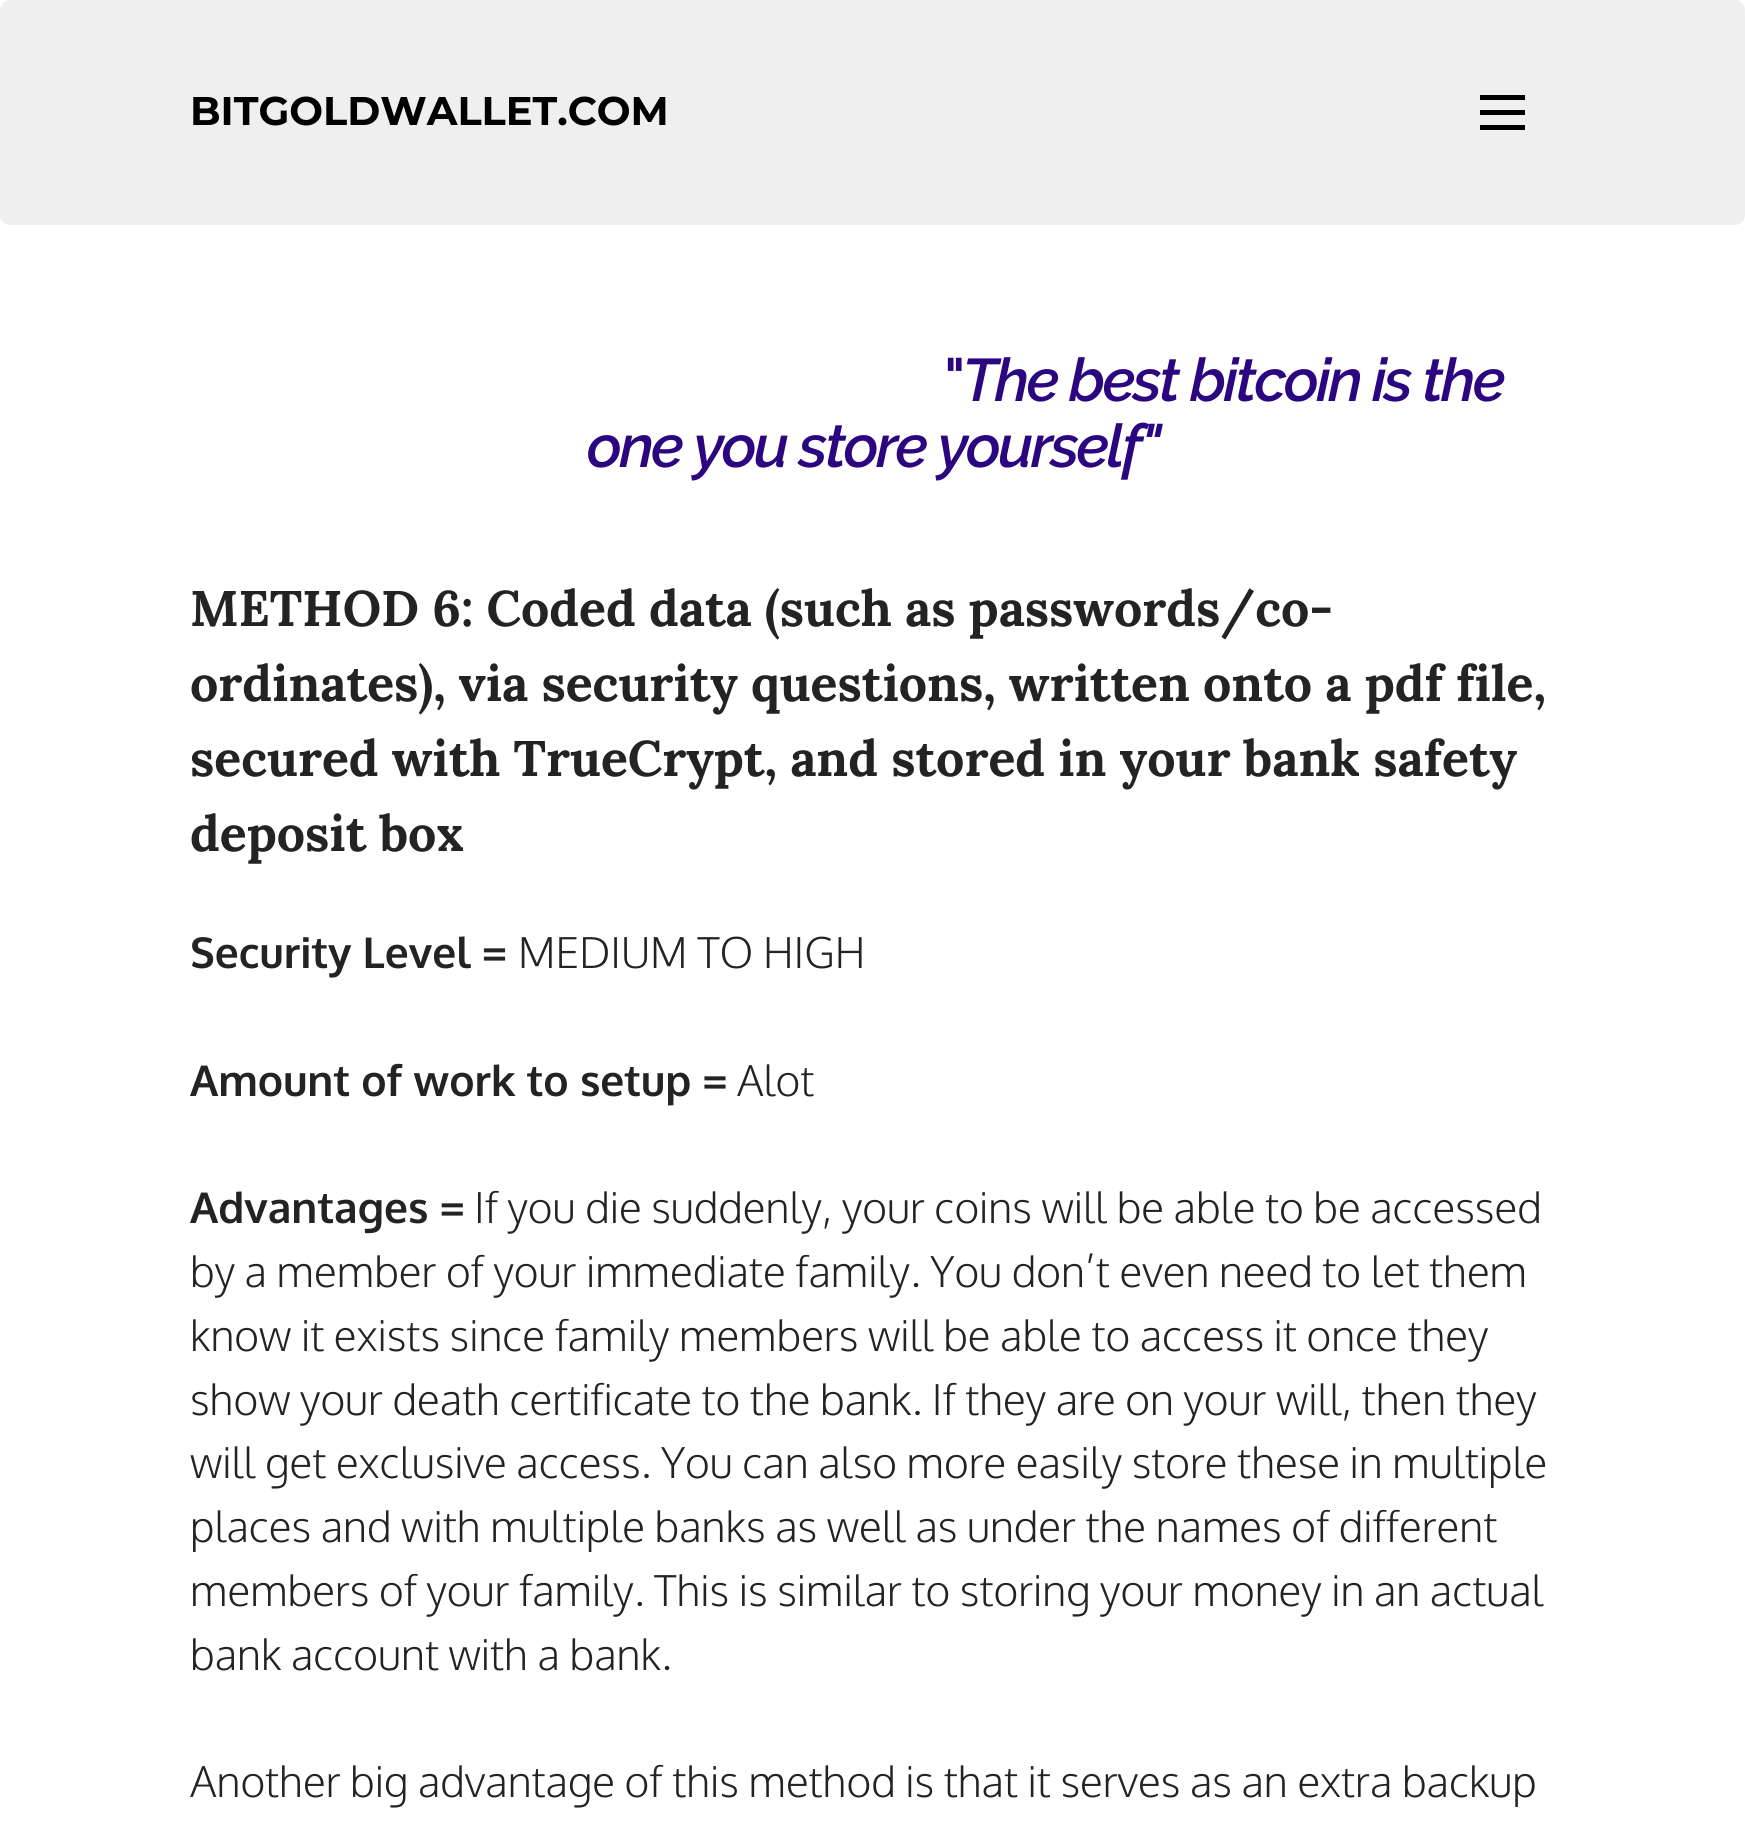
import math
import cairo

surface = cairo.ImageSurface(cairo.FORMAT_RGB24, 1745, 1839)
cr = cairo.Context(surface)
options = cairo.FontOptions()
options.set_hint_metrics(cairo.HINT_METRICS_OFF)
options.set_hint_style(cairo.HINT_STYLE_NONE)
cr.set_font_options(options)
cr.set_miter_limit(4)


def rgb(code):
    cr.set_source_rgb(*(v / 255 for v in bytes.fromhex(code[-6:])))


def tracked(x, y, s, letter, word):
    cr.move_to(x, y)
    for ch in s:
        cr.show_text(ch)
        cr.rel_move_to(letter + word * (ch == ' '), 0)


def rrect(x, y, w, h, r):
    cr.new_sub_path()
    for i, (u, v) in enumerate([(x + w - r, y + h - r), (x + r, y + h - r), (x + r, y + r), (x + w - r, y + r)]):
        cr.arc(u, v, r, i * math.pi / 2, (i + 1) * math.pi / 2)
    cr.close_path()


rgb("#ffffff")
cr.paint()
rgb("#efefef")
rrect(0, 0, 1745, 225, 10)
cr.fill()
for x, y, w, h, color in [
    (1480, 125, 45, 5, "#000000"),
    (1480, 110, 45, 5, "#000000"),
    (1480, 95, 45, 5, "#000000"),
]:
    rgb(color)
    cr.rectangle(x, y, w, h)
    cr.fill()
cr.select_font_face("Montserrat", cairo.FONT_SLANT_NORMAL, cairo.FONT_WEIGHT_BOLD)
cr.set_font_size(40)
cr.move_to(190, 125)
cr.show_text("BITGOLDWALLET.COM")
cr.select_font_face("Raleway SemiBold")
cr.set_font_size(60)
rgb("#2b0680")
tracked(944, 401, "\"", -2.5, 0)
cr.select_font_face("Raleway SemiBold", cairo.FONT_SLANT_ITALIC)
tracked(962, 401, "The best bitcoin is the", -2.5, 0)
tracked(587, 467, "one you store yourself\"", -2.5, 0)
cr.select_font_face("Lora", cairo.FONT_SLANT_NORMAL, cairo.FONT_WEIGHT_BOLD)
cr.set_font_size(50)
rgb("#232323")
for x, y, s in [
    (190, 626, "METHOD 6: Coded data (such as passwords/co-"),
    (190, 701, "ordinates), via security questions, written onto a pdf file,"),
    (190, 776, "secured with TrueCrypt, and stored in your bank safety"),
    (190, 851, "deposit box"),
]:
    cr.move_to(x, y)
    cr.show_text(s)
cr.select_font_face("Oxygen", cairo.FONT_SLANT_NORMAL, cairo.FONT_WEIGHT_BOLD)
cr.set_font_size(42.5)
cr.move_to(190, 968)
cr.show_text("Security Level =")
cr.select_font_face("Oxygen Light")
cr.move_to(518, 968)
cr.show_text("MEDIUM TO HIGH")
cr.select_font_face("Oxygen", cairo.FONT_SLANT_NORMAL, cairo.FONT_WEIGHT_BOLD)
cr.move_to(190, 1096)
cr.show_text("Amount of work to setup =")
cr.select_font_face("Oxygen Light")
cr.move_to(737, 1096)
cr.show_text("Alot")
cr.select_font_face("Oxygen", cairo.FONT_SLANT_NORMAL, cairo.FONT_WEIGHT_BOLD)
cr.move_to(190, 1223)
cr.show_text("Advantages =")
cr.select_font_face("Oxygen Light")
for x, y, s in [
    (474, 1223, "If you die suddenly, your coins will be able to be accessed"),
    (190, 1287, "by a member of your immediate family. You don’t even need to let them"),
    (190, 1351, "know it exists since family members will be able to access it once they"),
    (190, 1415, "show your death certificate to the bank. If they are on your will, then they"),
    (190, 1478, "will get exclusive access. You can also more easily store these in multiple"),
    (190, 1542, "places and with multiple banks as well as under the names of different"),
    (190, 1606, "members of your family. This is similar to storing your money in an actual"),
    (190, 1670, "bank account with a bank."),
    (190, 1797, "Another big advantage of this method is that it serves as an extra backup"),
]:
    cr.move_to(x, y)
    cr.show_text(s)
surface.write_to_png("page.png")
